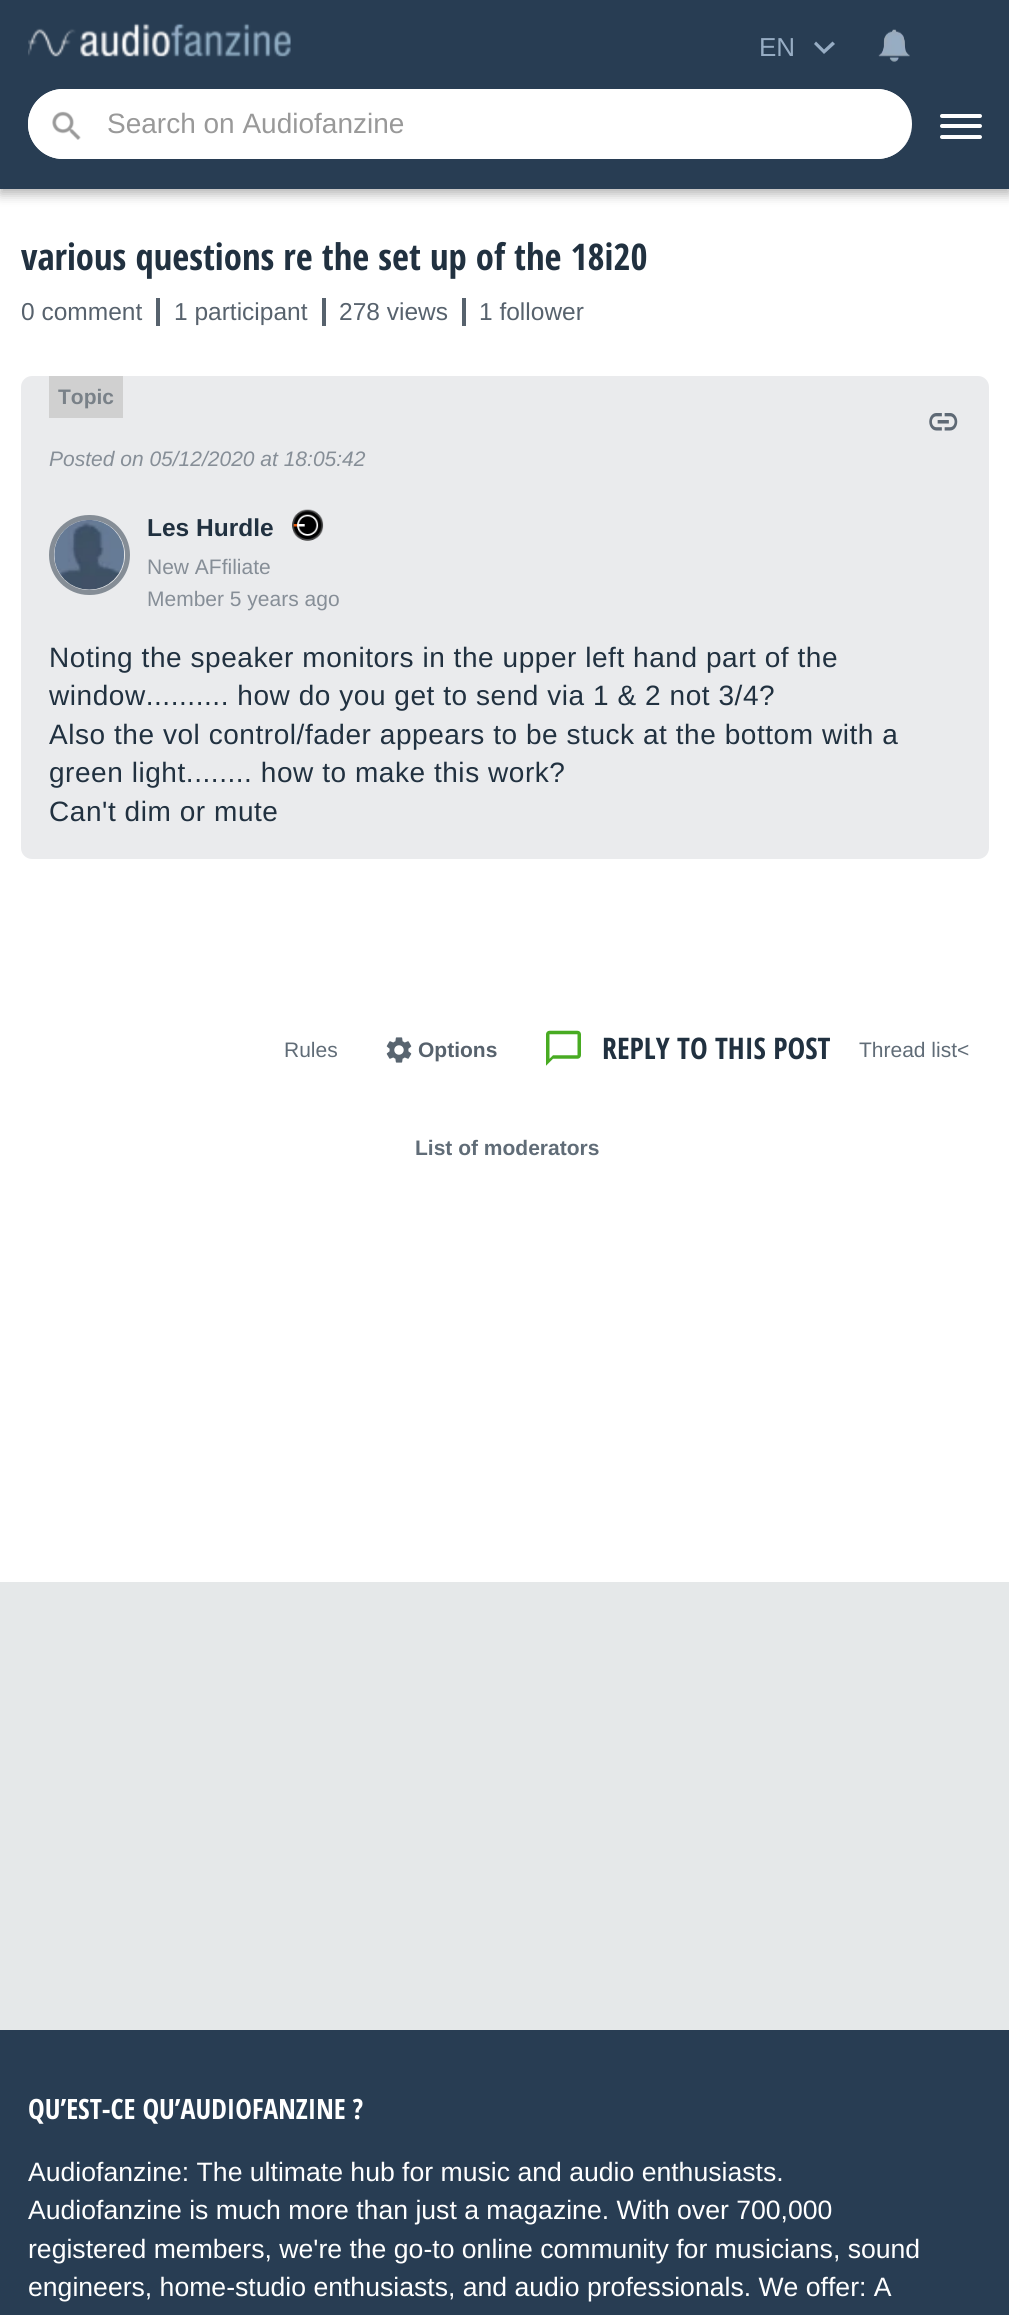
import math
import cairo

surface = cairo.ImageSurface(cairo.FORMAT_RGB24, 1009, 2315)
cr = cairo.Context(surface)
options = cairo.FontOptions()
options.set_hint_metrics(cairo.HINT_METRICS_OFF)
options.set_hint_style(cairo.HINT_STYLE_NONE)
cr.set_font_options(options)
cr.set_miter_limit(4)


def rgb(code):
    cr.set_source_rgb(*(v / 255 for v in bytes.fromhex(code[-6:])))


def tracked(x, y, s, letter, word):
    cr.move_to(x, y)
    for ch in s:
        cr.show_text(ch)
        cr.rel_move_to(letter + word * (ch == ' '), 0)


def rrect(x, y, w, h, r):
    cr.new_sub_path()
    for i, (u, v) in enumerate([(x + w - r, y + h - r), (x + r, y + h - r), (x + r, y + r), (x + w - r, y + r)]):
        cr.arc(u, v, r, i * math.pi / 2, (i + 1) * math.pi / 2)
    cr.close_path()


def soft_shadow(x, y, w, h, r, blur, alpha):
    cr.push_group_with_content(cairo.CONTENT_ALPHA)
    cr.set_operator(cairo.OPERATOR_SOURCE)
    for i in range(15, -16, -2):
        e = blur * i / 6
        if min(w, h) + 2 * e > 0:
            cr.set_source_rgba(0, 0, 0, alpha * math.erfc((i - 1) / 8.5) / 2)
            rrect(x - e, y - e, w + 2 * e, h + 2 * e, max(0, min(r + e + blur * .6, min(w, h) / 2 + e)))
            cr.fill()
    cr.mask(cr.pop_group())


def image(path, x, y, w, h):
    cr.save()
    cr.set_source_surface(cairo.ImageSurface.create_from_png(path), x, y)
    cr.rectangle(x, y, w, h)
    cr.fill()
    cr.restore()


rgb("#ffffff")
cr.paint()
rgb("#000000")
soft_shadow(0, 5, 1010, 189, 0, 6, 0.3)
rgb("#283d53")
cr.rectangle(0, 0, 1009, 189)
cr.fill()
image("img/1.png", 28, 23, 263, 34)
image("img/2.png", 878, 29, 32, 33)
rgb("#97adc4")
cr.new_path()
cr.move_to(832.5, 41.5)
cr.line_to(824, 49.5)
cr.line_to(816, 41.5)
cr.line_to(814, 44)
cr.line_to(824, 54)
cr.line_to(835, 44)
cr.close_path()
cr.fill()
rgb("#ffffff")
rrect(28, 89, 884, 70, 35)
cr.fill()
cr.set_fill_rule(cairo.FILL_RULE_EVEN_ODD)
cr.new_path()
cr.move_to(63, 89)
cr.line_to(877, 89)
cr.curve_to(896, 89, 912, 105, 912, 124)
cr.curve_to(912, 144, 896, 159, 877, 159)
cr.line_to(63, 159)
cr.curve_to(44, 159, 28, 144, 28, 124)
cr.curve_to(28, 105, 44, 89, 63, 89)
cr.close_path()
cr.move_to(63, 91)
cr.line_to(877, 91)
cr.curve_to(896, 91, 912, 106, 912, 124)
cr.curve_to(912, 143, 896, 158, 877, 158)
cr.line_to(63, 158)
cr.curve_to(45, 158, 30, 143, 30, 124)
cr.curve_to(30, 106, 45, 91, 63, 91)
cr.close_path()
cr.fill()
image("img/3.png", 52, 111, 29, 29)
rrect(940, 135, 42, 4, 2)
cr.fill()
rrect(940, 114, 42, 4, 2)
cr.fill()
rrect(940, 124, 42, 4, 2)
cr.fill()
for x, y, w, h, color in [
    (156, 298, 4, 28, "#57626d"),
    (322, 298, 4, 28, "#57626d"),
    (462, 298, 4, 28, "#57626d"),
]:
    rgb(color)
    cr.rectangle(x, y, w, h)
    cr.fill()
rgb("#eaebed")
rrect(21, 376, 968, 483, 11)
cr.fill()
rgb("#d0d0d0")
cr.rectangle(49, 376, 74, 42)
cr.fill()
image("img/4.png", 929, 413, 29, 18)
rrect(51.5, 517.5, 76, 75, 37.5)
rgb("#858d96")
cr.set_line_width(5)
cr.stroke()
image("img/5.png", 54, 520, 71, 70)
image("img/6.png", 292, 509, 32, 32)
image("img/7.png", 386, 1037, 26, 26)
image("img/8.png", 546, 1030, 35, 36)
rgb("#e5e8e9")
cr.rectangle(0, 1582, 1009, 448)
cr.fill()
rgb("#283d53")
cr.rectangle(0, 2030, 1009, 285)
cr.fill()
cr.select_font_face("Liberation Sans")
cr.set_font_size(26)
rgb("#97adc4")
cr.move_to(759, 56)
cr.show_text("EN")
cr.set_font_size(28)
rgb("#999999")
cr.move_to(107, 133)
cr.show_text("Search on Audiofanzine")
cr.select_font_face("Open Sans Condensed", cairo.FONT_SLANT_NORMAL, cairo.FONT_WEIGHT_BOLD)
cr.set_font_size(36.75)
rgb("#213140")
cr.move_to(21, 270)
cr.show_text("various questions re the set up of the 18i20")
cr.select_font_face("Liberation Sans")
cr.set_font_size(24.5)
rgb("#57626d")
for x, y, s in [
    (21, 320, "0 comment"),
    (174, 320, "1 participant"),
    (339, 320, "278 views"),
    (479, 320, "1 follower"),
]:
    cr.move_to(x, y)
    cr.show_text(s)
cr.select_font_face("Liberation Sans", cairo.FONT_SLANT_NORMAL, cairo.FONT_WEIGHT_BOLD)
cr.set_font_size(21)
rgb("#798188")
cr.move_to(58, 404)
cr.show_text("Topic")
cr.select_font_face("Liberation Sans", cairo.FONT_SLANT_ITALIC)
rgb("#868e97")
cr.move_to(49, 466)
cr.show_text("Posted on 05/12/2020 at 18:05:42")
cr.select_font_face("Liberation Sans", cairo.FONT_SLANT_NORMAL, cairo.FONT_WEIGHT_BOLD)
cr.set_font_size(24.5)
rgb("#213140")
cr.move_to(147, 536)
cr.show_text("Les Hurdle")
cr.select_font_face("Liberation Sans")
cr.set_font_size(21)
rgb("#868e97")
cr.move_to(147, 574)
cr.show_text("New AFfiliate")
cr.move_to(147, 606)
cr.show_text("Member 5 years ago")
cr.set_font_size(28)
rgb("#213140")
for x, y, s in [
    (49, 667, "Noting the speaker monitors in the upper left hand part of the"),
    (49, 705, "window.......... how do you get to send via 1 & 2 not 3/4?"),
    (49, 744, "Also the vol control/fader appears to be stuck at the bottom with a"),
    (49, 782, "green light........ how to make this work?"),
    (49, 821, "Can't dim or mute"),
]:
    tracked(x, y, s, 0.55, 0)
cr.set_font_size(21)
rgb("#606c77")
cr.move_to(284, 1057)
cr.show_text("Rules")
cr.select_font_face("Liberation Sans", cairo.FONT_SLANT_NORMAL, cairo.FONT_WEIGHT_BOLD)
rgb("#57626d")
cr.move_to(418, 1057)
cr.show_text("Options")
cr.select_font_face("Open Sans Condensed", cairo.FONT_SLANT_NORMAL, cairo.FONT_WEIGHT_BOLD)
cr.set_font_size(29.75)
rgb("#213140")
cr.move_to(602, 1059)
cr.show_text("REPLY TO THIS POST")
cr.select_font_face("Liberation Sans")
cr.set_font_size(21)
rgb("#606c77")
cr.move_to(859, 1057)
cr.show_text("Thread list<")
cr.select_font_face("Liberation Sans", cairo.FONT_SLANT_NORMAL, cairo.FONT_WEIGHT_BOLD)
cr.move_to(415, 1155)
cr.show_text("List of moderators")
cr.select_font_face("Open Sans Condensed", cairo.FONT_SLANT_NORMAL, cairo.FONT_WEIGHT_BOLD)
cr.set_font_size(28)
rgb("#ffffff")
cr.move_to(28, 2119)
cr.show_text("QU’EST-CE QU’AUDIOFANZINE ?")
cr.select_font_face("Liberation Sans")
cr.set_font_size(26.6)
for x, y, s in [
    (28, 2181, "Audiofanzine: The ultimate hub for music and audio enthusiasts."),
    (28, 2219, "Audiofanzine is much more than just a magazine. With over 700,000"),
    (28, 2258, "registered members, we're the go-to online community for musicians, sound"),
    (28, 2296, "engineers, home-studio enthusiasts, and audio professionals. We offer: A"),
]:
    cr.move_to(x, y)
    cr.show_text(s)
surface.write_to_png("page.png")
